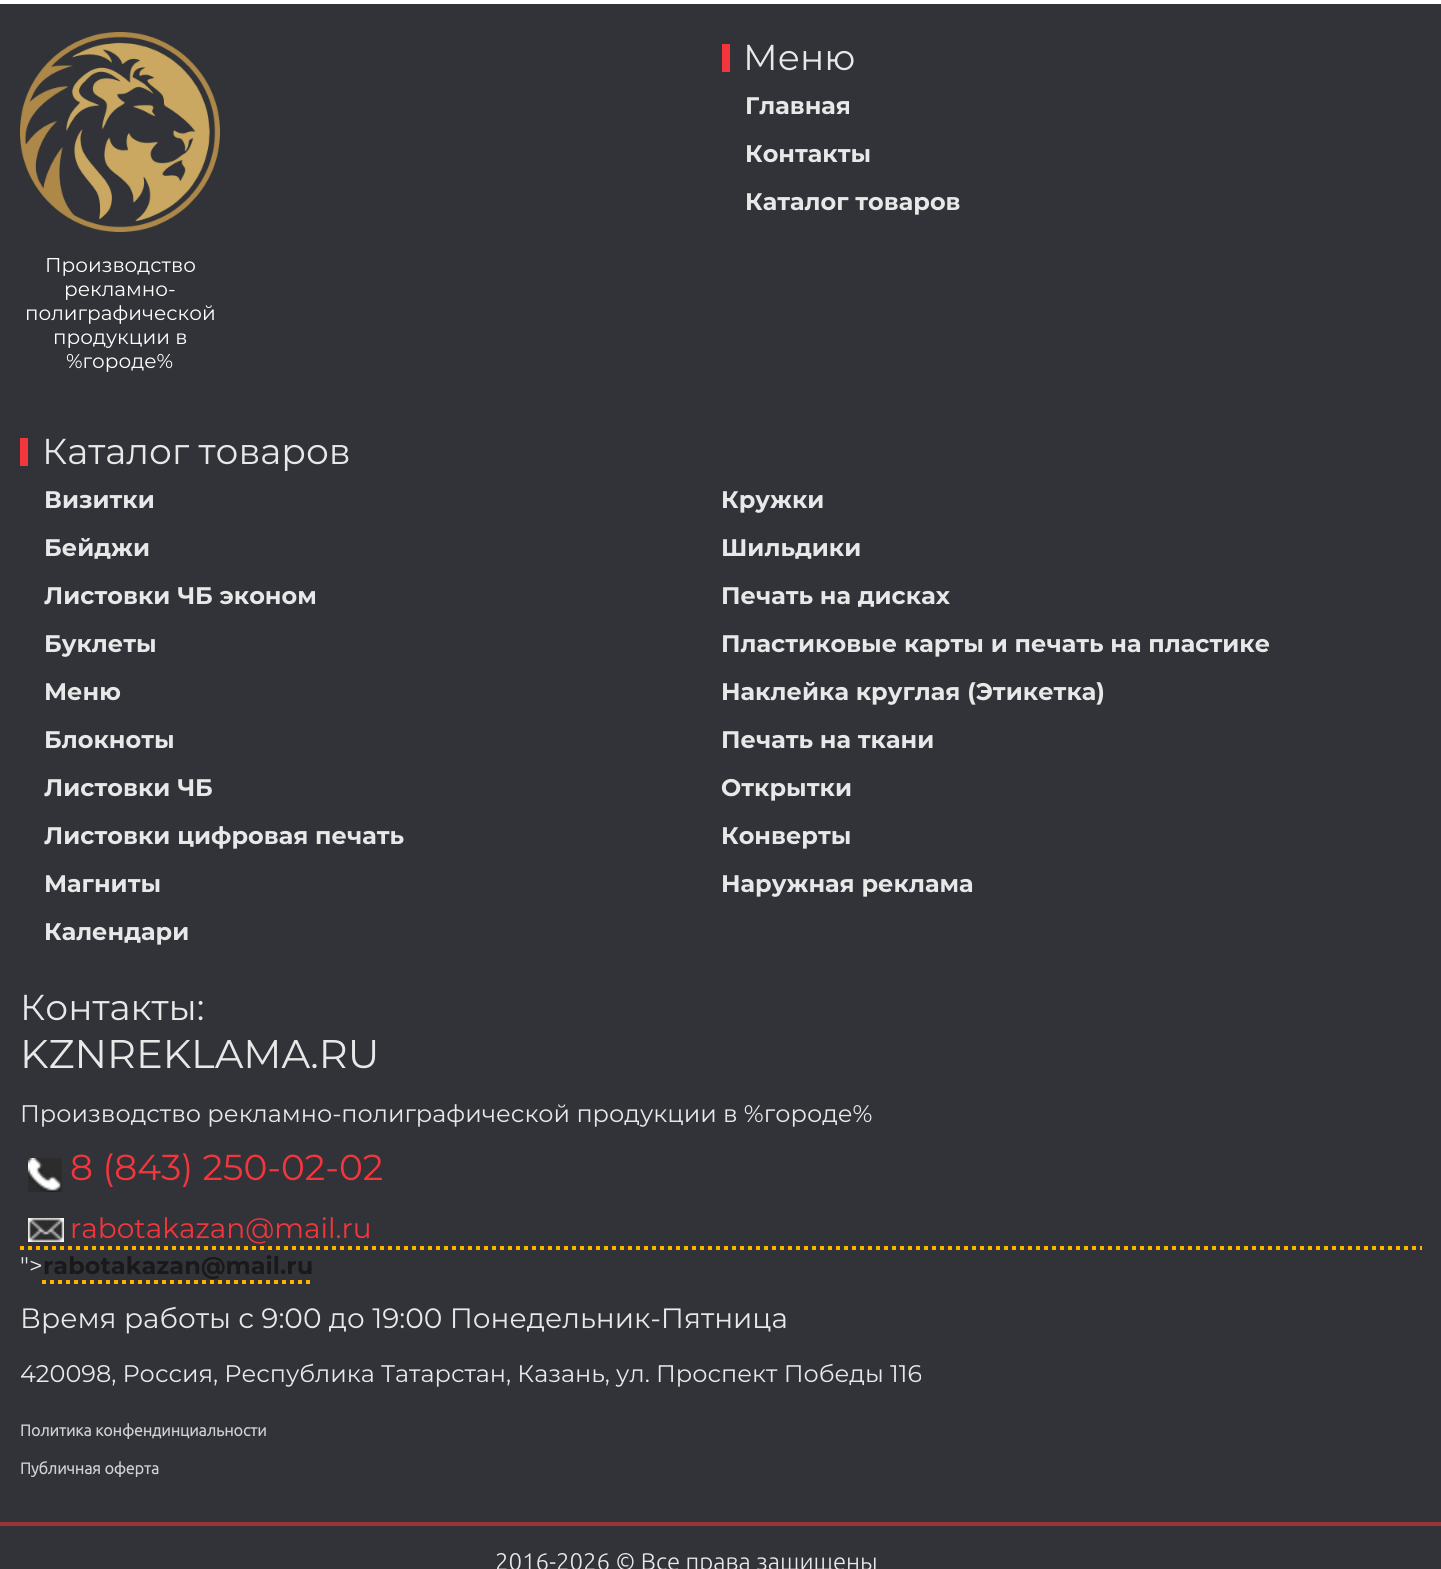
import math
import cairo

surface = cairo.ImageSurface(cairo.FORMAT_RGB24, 1441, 1569)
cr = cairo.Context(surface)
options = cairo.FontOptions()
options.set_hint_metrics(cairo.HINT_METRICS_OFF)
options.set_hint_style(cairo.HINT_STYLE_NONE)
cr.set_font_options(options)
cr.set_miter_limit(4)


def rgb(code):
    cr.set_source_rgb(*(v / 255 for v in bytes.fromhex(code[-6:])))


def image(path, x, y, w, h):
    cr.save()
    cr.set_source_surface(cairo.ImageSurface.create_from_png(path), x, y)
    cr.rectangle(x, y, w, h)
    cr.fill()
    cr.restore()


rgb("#ffffff")
cr.paint()
rgb("#313338")
cr.rectangle(0, 4, 1441, 1565)
cr.fill()
rgb("#f3363c")
cr.rectangle(722, 44, 8, 28)
cr.fill()
image("img/1.png", 20, 32, 200, 200)
cr.rectangle(20, 438, 8, 28)
cr.fill()
image("img/2.png", 28, 1158, 34, 34)
image("img/3.png", 28, 1218, 36, 24)
cr.new_path()
cr.move_to(20, 1248)
cr.line_to(1422, 1248)
rgb("#feb100")
cr.set_line_width(4)
cr.set_dash([4, 4])
cr.stroke()
cr.new_path()
cr.move_to(42, 1282)
cr.line_to(312, 1282)
cr.stroke()
rgb("#993535")
cr.rectangle(0, 1522, 1441, 4)
cr.fill()
cr.select_font_face("Montserrat")
cr.set_font_size(36)
rgb("#e8e8e8")
cr.move_to(743, 70)
cr.show_text("Меню")
cr.select_font_face("Montserrat", cairo.FONT_SLANT_NORMAL, cairo.FONT_WEIGHT_BOLD)
cr.set_font_size(24)
for x, y, s in [
    (745, 114, "Главная"),
    (745, 162, "Контакты"),
    (745, 210, "Каталог товаров"),
]:
    cr.move_to(x, y)
    cr.show_text(s)
cr.select_font_face("Montserrat")
cr.set_font_size(20)
rgb("#ffffff")
for x, y, s in [
    (45, 272, "Производство"),
    (64, 296, "рекламно-"),
    (25, 320, "полиграфической"),
    (53, 344, "продукции в"),
    (66, 368, "%городе%"),
]:
    cr.move_to(x, y)
    cr.show_text(s)
cr.set_font_size(36)
rgb("#e8e8e8")
cr.move_to(42, 464)
cr.show_text("Каталог товаров")
cr.select_font_face("Montserrat", cairo.FONT_SLANT_NORMAL, cairo.FONT_WEIGHT_BOLD)
cr.set_font_size(24)
for x, y, s in [
    (44, 508, "Визитки"),
    (44, 556, "Бейджи"),
    (44, 604, "Листовки ЧБ эконом"),
    (44, 652, "Буклеты"),
    (44, 700, "Меню"),
    (44, 748, "Блокноты"),
    (44, 796, "Листовки ЧБ"),
    (44, 844, "Листовки цифровая печать"),
    (44, 892, "Магниты"),
    (44, 940, "Календари"),
    (721, 508, "Кружки"),
    (721, 556, "Шильдики"),
    (721, 604, "Печать на дисках"),
    (721, 652, "Пластиковые карты и печать на пластике"),
    (721, 700, "Наклейка круглая (Этикетка)"),
    (721, 748, "Печать на ткани"),
    (721, 796, "Открытки"),
    (721, 844, "Конверты"),
    (721, 892, "Наружная реклама"),
]:
    cr.move_to(x, y)
    cr.show_text(s)
cr.select_font_face("Montserrat")
cr.set_font_size(36)
cr.move_to(20, 1020)
cr.show_text("Контакты:")
cr.set_font_size(40)
cr.move_to(20, 1068)
cr.show_text("KZNREKLAMA.RU")
cr.set_font_size(24)
cr.move_to(20, 1122)
cr.show_text("Производство рекламно-полиграфической продукции в %городе%")
cr.set_font_size(36)
rgb("#f3363c")
cr.move_to(70, 1180)
cr.show_text("8 (843) 250-02-02")
cr.set_font_size(28)
cr.move_to(70, 1238)
cr.show_text("rabotakazan@mail.ru")
cr.set_font_size(24)
rgb("#e8e8e8")
cr.move_to(20, 1274)
cr.show_text("\">")
cr.select_font_face("Montserrat", cairo.FONT_SLANT_NORMAL, cairo.FONT_WEIGHT_BOLD)
rgb("#191919")
cr.move_to(43, 1274)
cr.show_text("rabotakazan@mail.ru")
cr.select_font_face("Montserrat")
cr.set_font_size(28)
rgb("#e8e8e8")
cr.move_to(20, 1328)
cr.show_text("Время работы с 9:00 до 19:00 Понедельник-Пятница")
cr.set_font_size(24)
cr.move_to(20, 1382)
cr.show_text("420098, Россия, Республика Татарстан, Казань, ул. Проспект Победы 116")
cr.select_font_face("Ubuntu", cairo.FONT_SLANT_NORMAL, cairo.FONT_WEIGHT_BOLD)
cr.set_font_size(16)
rgb("#d0d1d2")
cr.move_to(20, 1436)
cr.show_text("Политика конфендинциальности")
cr.move_to(20, 1474)
cr.show_text("Публичная оферта")
cr.select_font_face("Ubuntu Light")
cr.set_font_size(24)
rgb("#e8e8e8")
cr.move_to(495, 1570)
cr.show_text("2016-2026 © Все права защищены")
surface.write_to_png("page.png")
